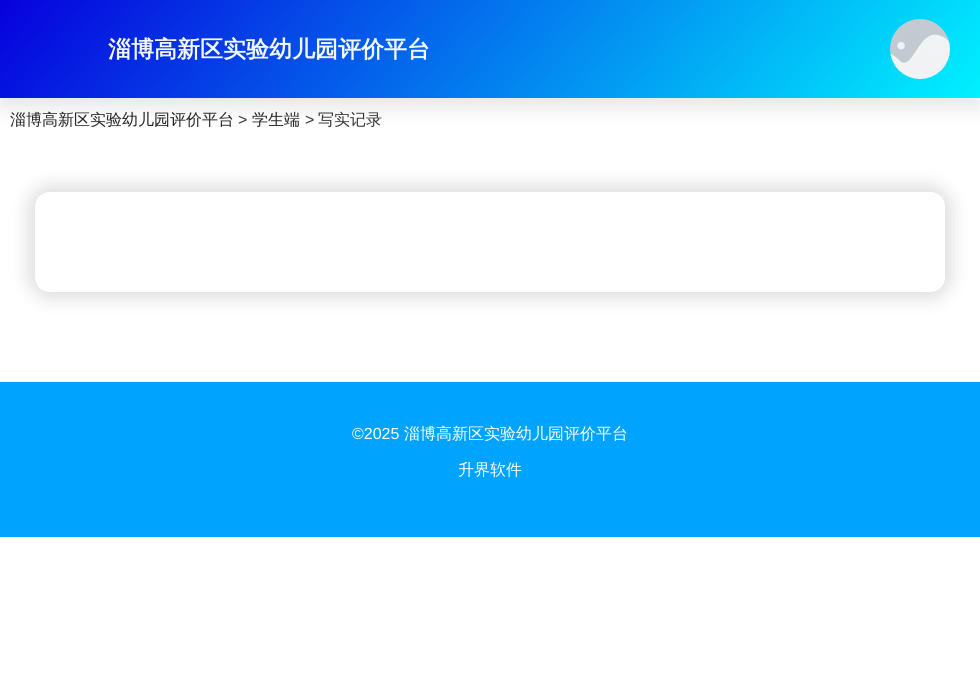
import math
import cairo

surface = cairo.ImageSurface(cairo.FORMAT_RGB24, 980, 674)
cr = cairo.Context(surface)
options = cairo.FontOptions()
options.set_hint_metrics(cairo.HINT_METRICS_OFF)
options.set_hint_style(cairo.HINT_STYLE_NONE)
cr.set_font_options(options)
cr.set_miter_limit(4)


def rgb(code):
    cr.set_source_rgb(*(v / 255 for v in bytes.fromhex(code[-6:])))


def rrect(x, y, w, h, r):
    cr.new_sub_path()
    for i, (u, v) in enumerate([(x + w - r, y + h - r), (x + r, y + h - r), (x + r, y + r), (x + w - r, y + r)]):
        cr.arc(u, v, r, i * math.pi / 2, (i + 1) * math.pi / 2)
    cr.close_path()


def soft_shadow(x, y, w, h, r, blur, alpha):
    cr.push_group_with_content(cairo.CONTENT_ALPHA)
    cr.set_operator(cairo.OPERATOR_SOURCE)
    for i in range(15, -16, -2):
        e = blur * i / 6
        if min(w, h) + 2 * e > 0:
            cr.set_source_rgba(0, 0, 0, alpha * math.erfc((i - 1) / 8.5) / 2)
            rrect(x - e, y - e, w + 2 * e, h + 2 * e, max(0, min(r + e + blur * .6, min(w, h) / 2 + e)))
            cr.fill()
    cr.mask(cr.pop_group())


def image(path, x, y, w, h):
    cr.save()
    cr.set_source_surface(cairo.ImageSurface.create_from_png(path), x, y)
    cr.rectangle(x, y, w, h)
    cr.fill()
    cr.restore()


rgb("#ffffff")
cr.paint()
rgb("#000000")
soft_shadow(0, 10, 980, 98, 0, 10, 0.1)
gradient = cairo.LinearGradient(178, -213, 802, 311)
gradient.add_color_stop_rgba(0, 0.027, 0, 0.867, 1)
gradient.add_color_stop_rgba(1, 0, 0.949, 1, 1)
cr.set_source(gradient)
cr.rectangle(0, 0, 980, 98)
cr.fill()
image("img/1.png", 890, 19, 60, 60)
cr.save()
cr.set_fill_rule(cairo.FILL_RULE_EVEN_ODD)
cr.new_path()
cr.move_to(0, 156)
cr.line_to(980, 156)
cr.line_to(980, 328)
cr.line_to(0, 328)
cr.close_path()
cr.move_to(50, 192)
cr.line_to(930, 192)
cr.curve_to(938.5, 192, 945, 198.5, 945, 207)
cr.line_to(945, 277)
cr.curve_to(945, 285.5, 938.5, 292, 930, 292)
cr.line_to(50, 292)
cr.curve_to(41.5, 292, 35, 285.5, 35, 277)
cr.line_to(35, 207)
cr.curve_to(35, 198.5, 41.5, 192, 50, 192)
cr.close_path()
cr.clip()
rgb("#000000")
soft_shadow(30, 187, 920, 110, 20, 10, 0.15)
cr.restore()
rgb("#00a4ff")
cr.rectangle(0, 382, 980, 155)
cr.fill()
cr.select_font_face("WenQuanYi Zen Hei", cairo.FONT_SLANT_NORMAL, cairo.FONT_WEIGHT_BOLD)
cr.set_font_size(23)
rgb("#f2f8fb")
cr.move_to(108, 57)
cr.show_text("淄博高新区实验幼儿园评价平台")
cr.select_font_face("WenQuanYi Zen Hei Medium")
cr.set_font_size(16)
rgb("#222222")
cr.move_to(10, 125)
cr.show_text("淄博高新区实验幼儿园评价平台")
cr.select_font_face("Liberation Sans")
rgb("#333333")
cr.move_to(238, 125)
cr.show_text(">")
cr.select_font_face("WenQuanYi Zen Hei Medium")
rgb("#222222")
cr.move_to(252, 125)
cr.show_text("学生端")
cr.select_font_face("Liberation Sans")
rgb("#333333")
cr.move_to(305, 125)
cr.show_text(">")
cr.select_font_face("WenQuanYi Zen Hei Medium")
cr.move_to(318, 125)
cr.show_text("写实记录")
cr.select_font_face("Liberation Sans")
rgb("#ffffff")
cr.move_to(352, 439)
cr.show_text("©2025")
cr.select_font_face("WenQuanYi Zen Hei Medium")
cr.move_to(404, 439)
cr.show_text("淄博高新区实验幼儿园评价平台")
cr.move_to(458, 475)
cr.show_text("升界软件")
surface.write_to_png("page.png")
